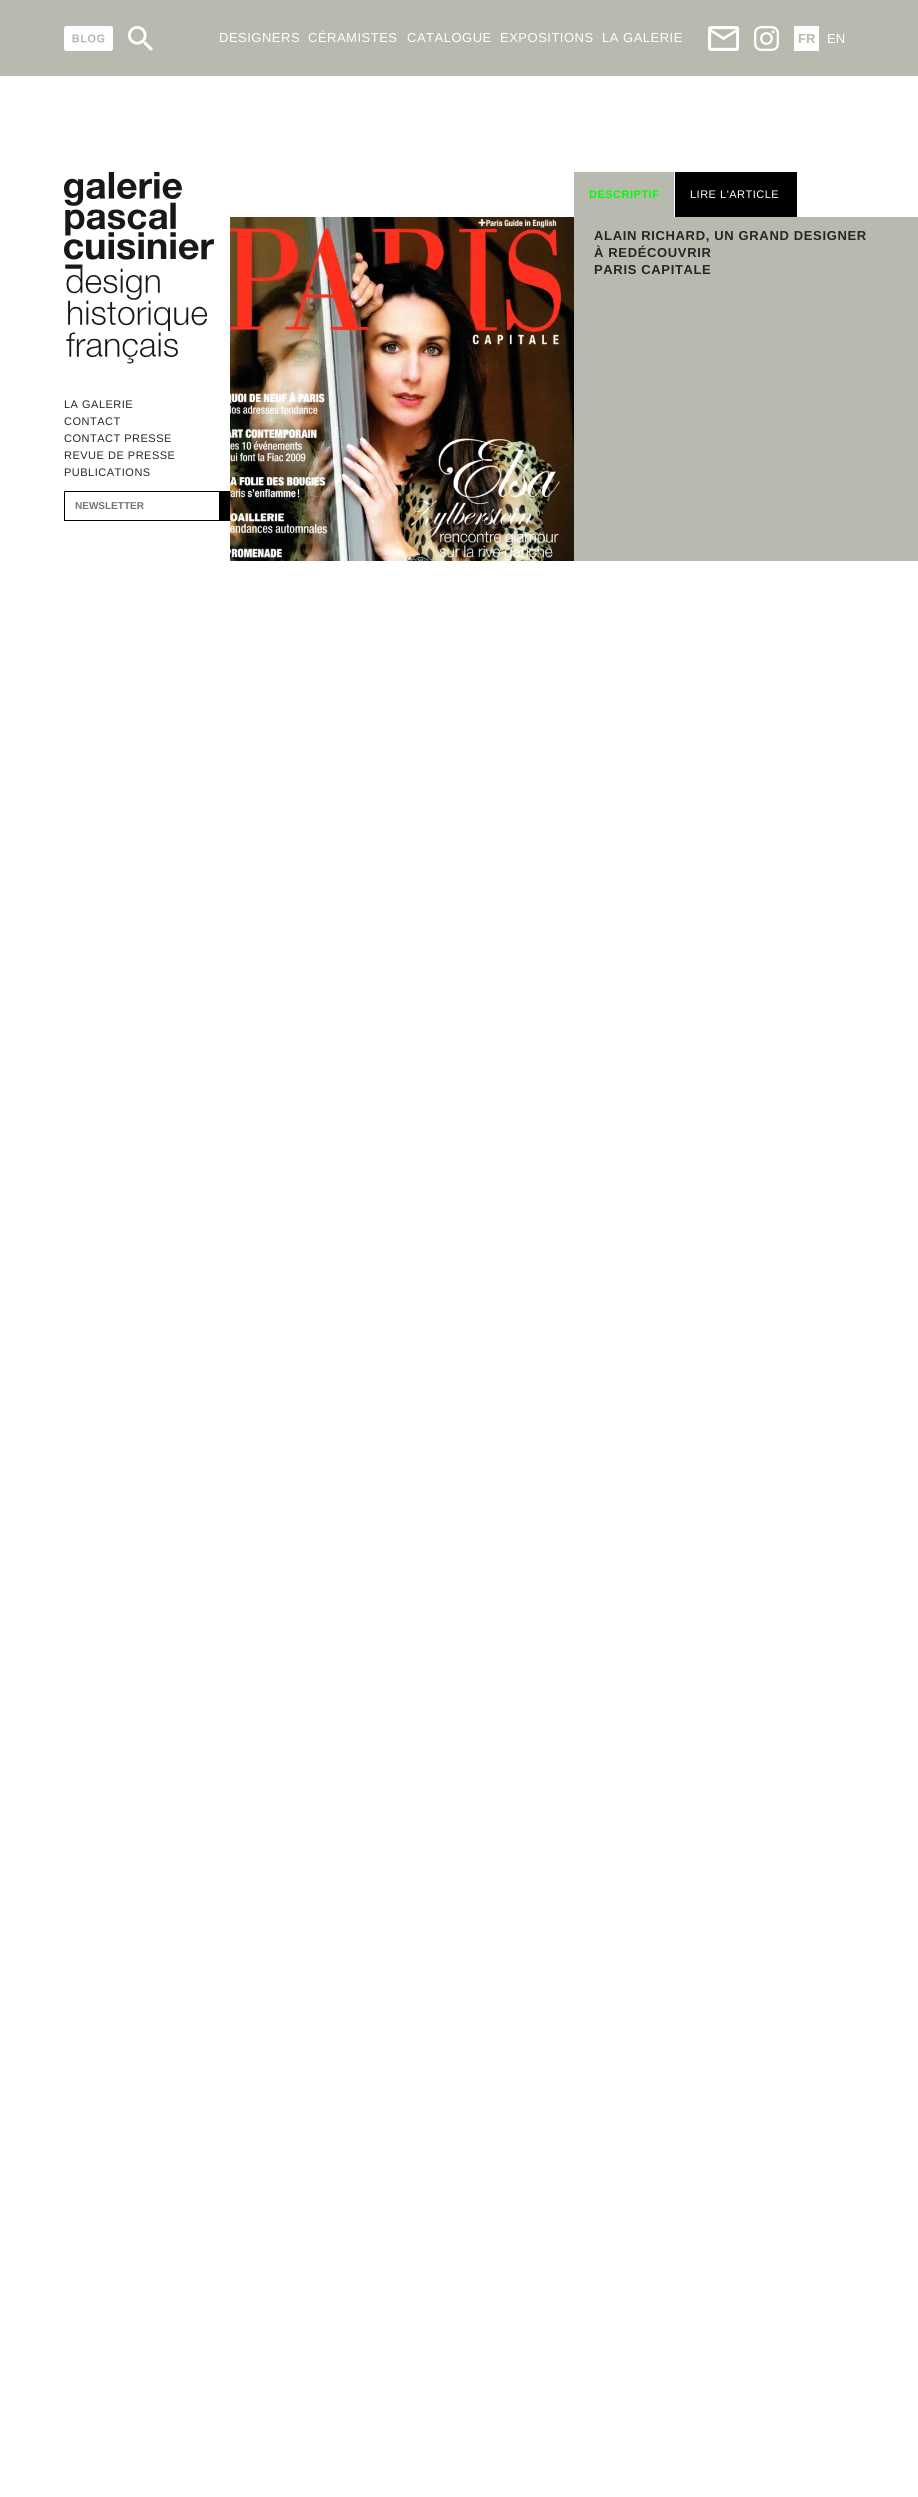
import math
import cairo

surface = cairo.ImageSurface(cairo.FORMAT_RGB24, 918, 2497)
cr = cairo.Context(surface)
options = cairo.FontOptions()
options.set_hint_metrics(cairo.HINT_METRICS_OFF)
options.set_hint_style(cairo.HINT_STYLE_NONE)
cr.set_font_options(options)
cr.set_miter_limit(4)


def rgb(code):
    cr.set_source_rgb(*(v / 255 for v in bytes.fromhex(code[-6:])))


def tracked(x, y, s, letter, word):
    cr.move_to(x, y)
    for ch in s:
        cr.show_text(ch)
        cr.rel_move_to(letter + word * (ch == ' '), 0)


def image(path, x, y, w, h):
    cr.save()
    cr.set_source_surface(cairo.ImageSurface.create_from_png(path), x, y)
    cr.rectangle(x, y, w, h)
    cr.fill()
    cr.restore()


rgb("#ffffff")
cr.paint()
rgb("#b8b9af")
cr.rectangle(0, 0, 918, 76)
cr.fill()
image("img/1.png", 64, 26, 49, 25)
image("img/2.png", 128, 26, 25, 25)
image("img/3.png", 708, 26, 31, 25)
image("img/4.png", 754, 26, 25, 25)
rgb("#ffffff")
cr.rectangle(794, 26, 25, 25)
cr.fill()
image("img/5.png", 230, 217, 344, 344)
for x, y, w, h, color in [
    (574, 217, 344, 344, "#b8b9af"),
    (574, 172, 100, 45, "#b8b9af"),
    (675, 172, 122, 45, "#000000"),
]:
    rgb(color)
    cr.rectangle(x, y, w, h)
    cr.fill()
image("img/6.png", 64, 172, 150, 192)
cr.rectangle(64.5, 491.5, 155, 29)
cr.set_line_width(1)
cr.stroke()
cr.rectangle(220, 491, 10, 30)
cr.fill()
cr.select_font_face("Liberation Sans")
cr.set_font_size(13)
rgb("#ffffff")
for x, y, s in [
    (219, 42, "DESIGNERS"),
    (308, 42, "CÉRAMISTES"),
    (407, 42, "CATALOGUE"),
    (500, 42, "EXPOSITIONS"),
    (602, 42, "LA GALERIE"),
]:
    tracked(x, y, s, 0.5, 0)
cr.select_font_face("Liberation Sans", cairo.FONT_SLANT_NORMAL, cairo.FONT_WEIGHT_BOLD)
rgb("#b8b9af")
cr.move_to(798, 43)
cr.show_text("FR")
cr.select_font_face("Liberation Sans")
rgb("#ffffff")
cr.move_to(827, 43)
cr.show_text("EN")
cr.select_font_face("Liberation Sans", cairo.FONT_SLANT_NORMAL, cairo.FONT_WEIGHT_BOLD)
cr.set_font_size(11)
rgb("#00ff00")
tracked(589, 198, "DESCRIPTIF", 0.5, 0)
cr.select_font_face("Liberation Sans")
rgb("#ffffff")
tracked(690, 198, "LIRE L'ARTICLE", 0.5, 0)
cr.select_font_face("Liberation Sans", cairo.FONT_SLANT_NORMAL, cairo.FONT_WEIGHT_BOLD)
cr.set_font_size(13)
rgb("#262626")
for x, y, s in [
    (594, 240, "ALAIN RICHARD, UN GRAND DESIGNER"),
    (594, 257, "À REDÉCOUVRIR"),
    (594, 274, "PARIS CAPITALE"),
]:
    tracked(x, y, s, 0.65, 0)
cr.select_font_face("Liberation Sans")
cr.set_font_size(11)
for x, y, s in [
    (64, 408, "LA GALERIE"),
    (64, 425, "CONTACT"),
    (64, 442, "CONTACT PRESSE"),
    (64, 459, "REVUE DE PRESSE"),
    (64, 476, "PUBLICATIONS"),
]:
    tracked(x, y, s, 0.5, 0)
cr.select_font_face("Liberation Sans", cairo.FONT_SLANT_NORMAL, cairo.FONT_WEIGHT_BOLD)
cr.set_font_size(10)
rgb("#757575")
cr.move_to(75, 509)
cr.show_text("NEWSLETTER")
surface.write_to_png("page.png")
